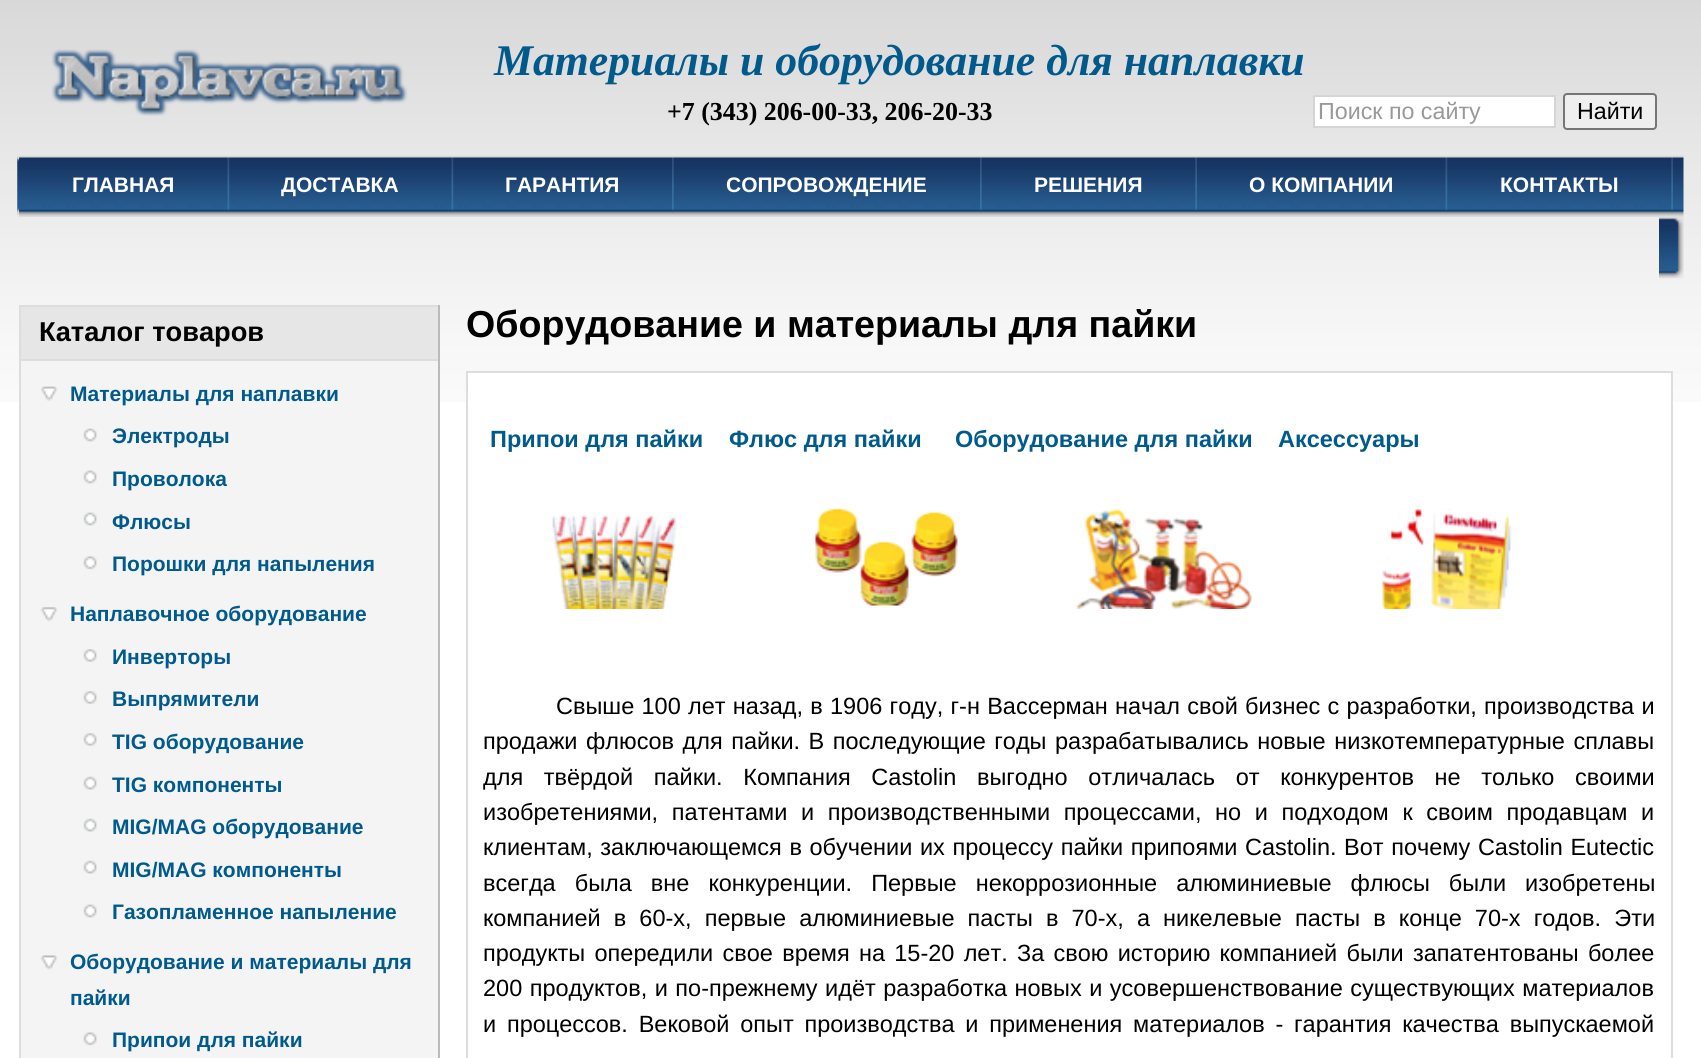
import math
import cairo

surface = cairo.ImageSurface(cairo.FORMAT_RGB24, 1701, 1058)
cr = cairo.Context(surface)
options = cairo.FontOptions()
options.set_hint_metrics(cairo.HINT_METRICS_OFF)
options.set_hint_style(cairo.HINT_STYLE_NONE)
cr.set_font_options(options)
cr.set_miter_limit(4)


def rgb(code):
    cr.set_source_rgb(*(v / 255 for v in bytes.fromhex(code[-6:])))


def tracked(x, y, s, letter, word):
    cr.move_to(x, y)
    for ch in s:
        cr.show_text(ch)
        cr.rel_move_to(letter + word * (ch == ' '), 0)


def rrect(x, y, w, h, r):
    cr.new_sub_path()
    for i, (u, v) in enumerate([(x + w - r, y + h - r), (x + r, y + h - r), (x + r, y + r), (x + w - r, y + r)]):
        cr.arc(u, v, r, i * math.pi / 2, (i + 1) * math.pi / 2)
    cr.close_path()


def image(path, x, y, w, h):
    cr.save()
    cr.set_source_surface(cairo.ImageSurface.create_from_png(path), x, y)
    cr.rectangle(x, y, w, h)
    cr.fill()
    cr.restore()


rgb("#ffffff")
cr.paint()
image("img/1.png", 0, 0, 1701, 402)
image("img/2.png", 51, 49, 357, 67)
rgb("#ffffff")
cr.rectangle(1314, 96, 241, 31)
cr.fill_preserve()
rgb("#d5d5d5")
cr.stroke()
rgb("#efefef")
rrect(1564, 94, 92, 35, 3)
cr.fill_preserve()
rgb("#767676")
cr.stroke()
image("img/3.png", 17, 155, 1667, 62)
image("img/4.png", 17, 156, 3, 61)
image("img/5.png", 19, 157, 1, 58)
image("img/6.png", 227, 157, 3, 56)
image("img/7.png", 451, 157, 3, 56)
image("img/8.png", 672, 157, 2, 56)
image("img/9.png", 980, 157, 2, 56)
image("img/10.png", 1195, 157, 2, 56)
image("img/11.png", 1445, 157, 3, 56)
image("img/12.png", 1671, 157, 2, 56)
image("img/13.png", 1659, 217, 25, 62)
for x, y, w, h, color in [
    (21, 307, 417, 52, "#e6e6e6"),
    (19, 305, 420, 2, "#dddddd"),
    (438, 305, 2, 54, "#bbbbbb"),
    (19, 305, 2, 54, "#dddddd"),
    (21, 361, 417, 697, "#f4f4f4"),
    (19, 359, 420, 2, "#dddddd"),
    (438, 359, 2, 699, "#bbbbbb"),
    (19, 359, 2, 699, "#dddddd"),
]:
    rgb(color)
    cr.rectangle(x, y, w, h)
    cr.fill()
image("img/14.png", 40, 386, 18, 15)
image("img/15.png", 83, 428, 14, 14)
image("img/15.png", 83, 470, 14, 14)
image("img/15.png", 83, 512, 14, 14)
image("img/16.png", 83, 556, 14, 14)
image("img/17.png", 40, 607, 18, 15)
image("img/18.png", 83, 649, 14, 13)
image("img/18.png", 83, 691, 14, 13)
image("img/18.png", 83, 733, 14, 13)
image("img/19.png", 83, 776, 14, 14)
image("img/19.png", 83, 818, 14, 14)
image("img/19.png", 83, 860, 14, 14)
image("img/15.png", 83, 904, 14, 14)
image("img/20.png", 40, 955, 18, 15)
image("img/16.png", 83, 1032, 14, 14)
rgb("#ffffff")
cr.rectangle(468, 373, 1203, 29)
cr.fill()
cr.rectangle(467, 372, 1205, 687)
rgb("#dddddd")
cr.stroke()
image("img/21.png", 552, 515, 125, 94)
image("img/22.png", 814, 507, 144, 99)
image("img/23.png", 1076, 508, 176, 101)
image("img/24.png", 1382, 508, 130, 101)
cr.select_font_face("Liberation Serif", cairo.FONT_SLANT_ITALIC, cairo.FONT_WEIGHT_BOLD)
cr.set_font_size(43.75)
rgb("#005a8c")
cr.move_to(494, 75)
cr.show_text("Материалы и оборудование для наплавки")
cr.select_font_face("Liberation Sans")
cr.set_font_size(23.25)
rgb("#999999")
cr.move_to(1318, 119)
cr.show_text("Поиск по сайту")
rgb("#000000")
cr.move_to(1577, 119)
cr.show_text("Найти")
cr.select_font_face("Liberation Serif", cairo.FONT_SLANT_NORMAL, cairo.FONT_WEIGHT_BOLD)
cr.set_font_size(25.9)
cr.move_to(667, 120)
cr.show_text("+7 (343) 206-00-33, 206-20-33")
cr.select_font_face("Liberation Sans", cairo.FONT_SLANT_NORMAL, cairo.FONT_WEIGHT_BOLD)
cr.set_font_size(21)
rgb("#ffffff")
for x, y, s in [
    (72, 192, "ГЛАВНАЯ"),
    (281, 192, "ДОСТАВКА"),
    (505, 192, "ГАРАНТИЯ"),
    (726, 192, "СОПРОВОЖДЕНИЕ"),
    (1034, 192, "РЕШЕНИЯ"),
    (1249, 192, "О КОМПАНИИ"),
    (1500, 192, "КОНТАКТЫ"),
]:
    cr.move_to(x, y)
    cr.show_text(s)
cr.set_font_size(27.25)
rgb("#000000")
cr.move_to(39, 341)
cr.show_text("Каталог товаров")
cr.set_font_size(21)
rgb("#005a8c")
for x, y, s in [
    (70, 401, "Материалы для наплавки"),
    (112, 443, "Электроды"),
    (112, 486, "Проволока"),
    (112, 529, "Флюсы"),
    (112, 571, "Порошки для напыления"),
    (70, 621, "Наплавочное оборудование"),
    (112, 664, "Инверторы"),
    (112, 706, "Выпрямители"),
    (112, 749, "TIG оборудование"),
    (112, 792, "TIG компоненты"),
    (112, 834, "MIG/MAG оборудование"),
    (112, 877, "MIG/MAG компоненты"),
    (112, 919, "Газопламенное напыление"),
    (70, 969, "Оборудование и материалы для"),
    (70, 1005, "пайки"),
    (112, 1047, "Припои для пайки"),
]:
    cr.move_to(x, y)
    cr.show_text(s)
cr.set_font_size(37.6)
rgb("#000000")
cr.move_to(466, 337)
cr.show_text("Оборудование и материалы для пайки")
cr.set_font_size(23.5)
rgb("#005a8c")
for x, y, s in [
    (490, 447, "Припои для пайки"),
    (729, 447, "Флюс для пайки"),
    (955, 447, "Оборудование для пайки"),
    (1278, 447, "Аксессуары"),
]:
    cr.move_to(x, y)
    cr.show_text(s)
cr.select_font_face("Liberation Sans")
rgb("#000000")
tracked(556, 714, "Свыше 100 лет назад, в 1906 году, г-н Вассерман начал свой бизнес с разработки, производства и", 0, 0.75)
tracked(483, 749, "продажи флюсов для пайки. В последующие годы разрабатывались новые низкотемпературные сплавы", 0, 2)
tracked(483, 785, "для твёрдой пайки. Компания Castolin выгодно отличалась от конкурентов не только своими", 0, 14.1)
tracked(483, 820, "изобретениями, патентами и производственными процессами, но и подходом к своим продавцам и", 0, 7.1)
tracked(483, 855, "клиентам, заключающемся в обучении их процессу пайки припоями Castolin. Вот почему Castolin Eutectic", 0, 1.1)
tracked(483, 891, "всегда была вне конкуренции. Первые некоррозионные алюминиевые флюсы были изобретены", 0, 12.5)
tracked(483, 926, "компанией в 60-х, первые алюминиевые пасты в 70-х, а никелевые пасты в конце 70-х годов. Эти", 0, 6.6)
tracked(483, 961, "продукты опередили свое время на 15-20 лет. За свою историю компанией были запатентованы более", 0, 2.75)
tracked(483, 996, "200 продуктов, и по-прежнему идёт разработка новых и усовершенствование существующих материалов", 0, 1)
tracked(483, 1032, "и процессов. Вековой опыт производства и применения материалов - гарантия качества выпускаемой", 0, 4.25)
surface.write_to_png("page.png")
